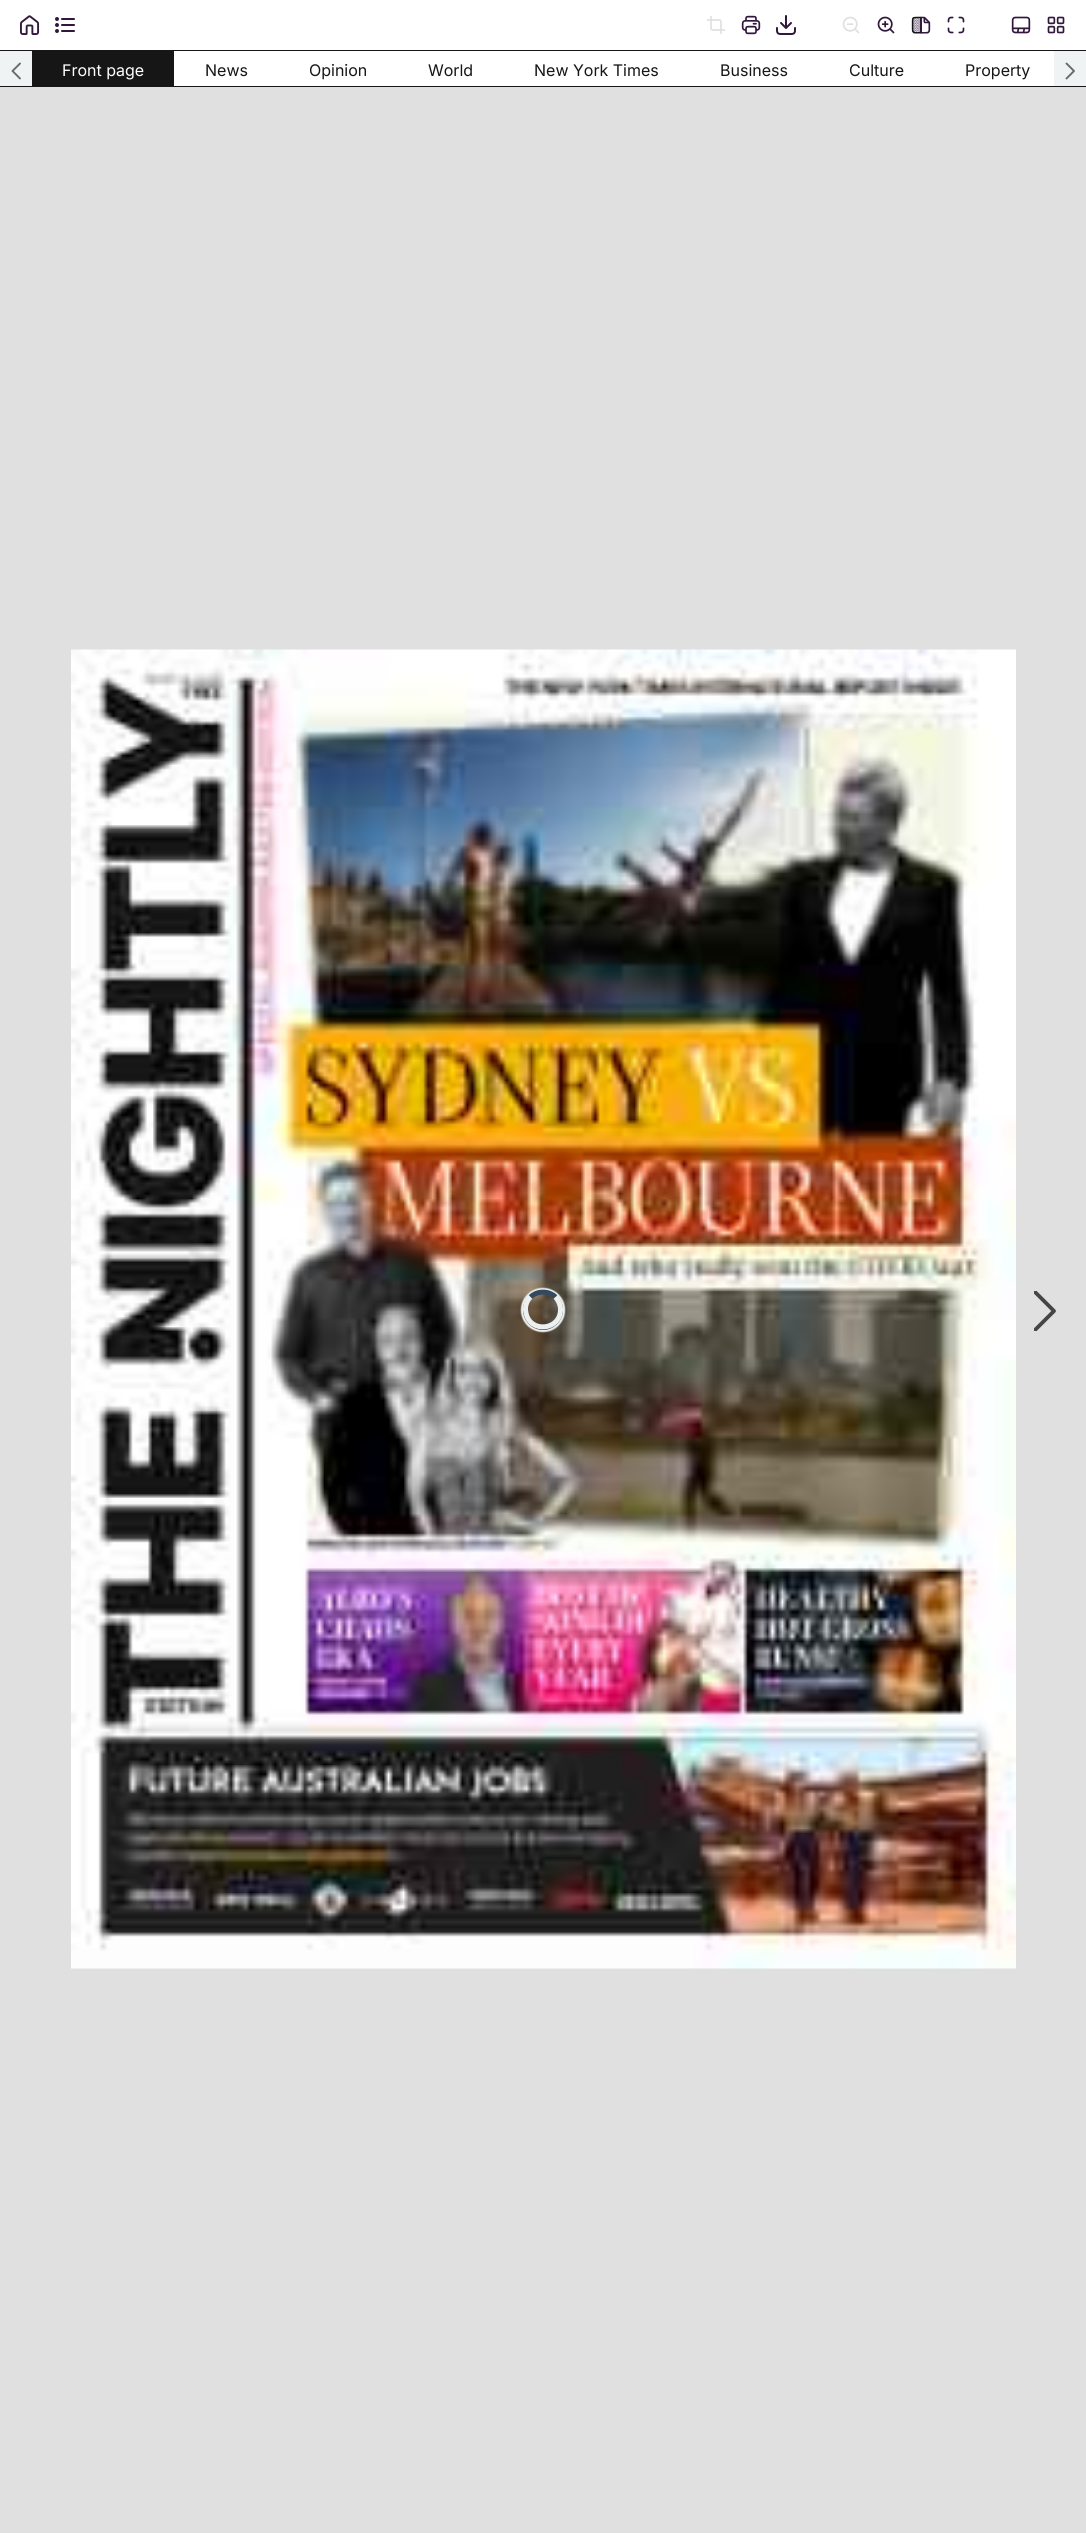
import math
import cairo

surface = cairo.ImageSurface(cairo.FORMAT_RGB24, 1086, 2533)
cr = cairo.Context(surface)
options = cairo.FontOptions()
options.set_hint_metrics(cairo.HINT_METRICS_OFF)
options.set_hint_style(cairo.HINT_STYLE_NONE)
cr.set_font_options(options)
cr.set_miter_limit(4)


def rgb(code):
    cr.set_source_rgb(*(v / 255 for v in bytes.fromhex(code[-6:])))


def rrect(x, y, w, h, r):
    cr.new_sub_path()
    for i, (u, v) in enumerate([(x + w - r, y + h - r), (x + r, y + h - r), (x + r, y + r), (x + w - r, y + r)]):
        cr.arc(u, v, r, i * math.pi / 2, (i + 1) * math.pi / 2)
    cr.close_path()


def soft_shadow(x, y, w, h, r, blur, alpha):
    cr.push_group_with_content(cairo.CONTENT_ALPHA)
    cr.set_operator(cairo.OPERATOR_SOURCE)
    for i in range(15, -16, -2):
        e = blur * i / 6
        if min(w, h) + 2 * e > 0:
            cr.set_source_rgba(0, 0, 0, alpha * math.erfc((i - 1) / 8.5) / 2)
            rrect(x - e, y - e, w + 2 * e, h + 2 * e, max(0, min(r + e + blur * .6, min(w, h) / 2 + e)))
            cr.fill()
    cr.mask(cr.pop_group())


def image(path, x, y, w, h):
    cr.save()
    cr.set_source_surface(cairo.ImageSurface.create_from_png(path), x, y)
    cr.rectangle(x, y, w, h)
    cr.fill()
    cr.restore()


rgb("#e0e0e0")
cr.paint()
rgb("#ffffff")
cr.rectangle(0, 0, 1086, 86)
cr.fill()
image("img/1.png", 20, 15, 20, 20)
image("img/2.png", 55, 17, 20, 16)
image("img/3.png", 707, 16, 18, 18)
image("img/4.png", 741, 15, 20, 20)
image("img/5.png", 776, 15, 20, 20)
image("img/6.png", 842, 16, 18, 18)
image("img/7.png", 877, 16, 18, 18)
image("img/8.png", 911, 16, 20, 18)
image("img/9.png", 947, 16, 18, 18)
image("img/10.png", 1011, 16, 20, 18)
image("img/11.png", 1047, 16, 18, 18)
for x, y, w, h, color in [
    (1054, 51, 32, 35, "#f0f3f4"),
    (0, 51, 32, 35, "#f0f3f4"),
    (0, 50, 1086, 1, "#161616"),
    (0, 86, 1086, 1, "#161616"),
]:
    rgb(color)
    cr.rectangle(x, y, w, h)
    cr.fill()
cr.new_path()
cr.move_to(20, 63.5)
cr.line_to(12.5, 71)
cr.line_to(20, 78.5)
rgb("#696a6a")
cr.set_line_width(1.9)
cr.set_line_cap(cairo.LINE_CAP_ROUND)
cr.set_line_join(cairo.LINE_JOIN_ROUND)
cr.stroke()
cr.new_path()
cr.move_to(1066.5, 63.5)
cr.line_to(1074, 71)
cr.line_to(1066.5, 78.5)
cr.stroke()
rgb("#161616")
cr.rectangle(32, 51, 142, 35)
cr.fill()
image("img/12.png", 71, 649, 945, 1320)
cr.save()
cr.set_fill_rule(cairo.FILL_RULE_EVEN_ODD)
cr.new_path()
cr.move_to(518, 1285)
cr.line_to(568, 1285)
cr.line_to(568, 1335)
cr.line_to(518, 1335)
cr.close_path()
cr.move_to(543, 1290)
cr.curve_to(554, 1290, 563, 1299, 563, 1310)
cr.curve_to(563, 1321, 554, 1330, 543, 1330)
cr.curve_to(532, 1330, 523, 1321, 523, 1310)
cr.curve_to(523, 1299, 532, 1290, 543, 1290)
cr.close_path()
cr.clip()
rgb("#ecf0f1")
soft_shadow(521, 1288, 44, 44, 22, 0.5, 1)
cr.restore()
cr.new_path()
cr.move_to(530.5, 1297)
cr.curve_to(537.5, 1290.5, 548.5, 1290.5, 555.5, 1297)
rgb("#34495e")
cr.set_line_width(5)
cr.set_line_cap(cairo.LINE_CAP_BUTT)
cr.set_line_join(cairo.LINE_JOIN_MITER)
cr.stroke()
cr.new_path()
cr.move_to(555.5, 1297)
cr.curve_to(558.5, 1300.5, 560.5, 1305, 560.5, 1309.5)
cr.curve_to(560.5, 1330.5, 530, 1333.5, 526, 1313)
cr.curve_to(524.5, 1307, 526.5, 1301, 530.5, 1297)
rgb("#ecf0f1")
cr.stroke()
cr.save()
cr.rectangle(1034, 1291, 22, 40)
cr.clip()
cr.new_path()
cr.move_to(1035.5, 1292.5)
cr.line_to(1054, 1311)
cr.line_to(1035.5, 1329.5)
rgb("#444545")
cr.set_line_width(3.8)
cr.set_line_cap(cairo.LINE_CAP_ROUND)
cr.set_line_join(cairo.LINE_JOIN_ROUND)
cr.stroke()
cr.restore()
cr.select_font_face("Inter")
cr.set_font_size(16)
rgb("#ffffff")
cr.move_to(62, 76)
cr.show_text("Front page")
rgb("#161616")
for x, y, s in [
    (205, 76, "News"),
    (309, 76, "Opinion"),
    (428, 76, "World"),
    (534, 76, "New York Times"),
    (720, 76, "Business"),
    (849, 76, "Culture"),
    (965, 76, "Property"),
]:
    cr.move_to(x, y)
    cr.show_text(s)
surface.write_to_png("page.png")
